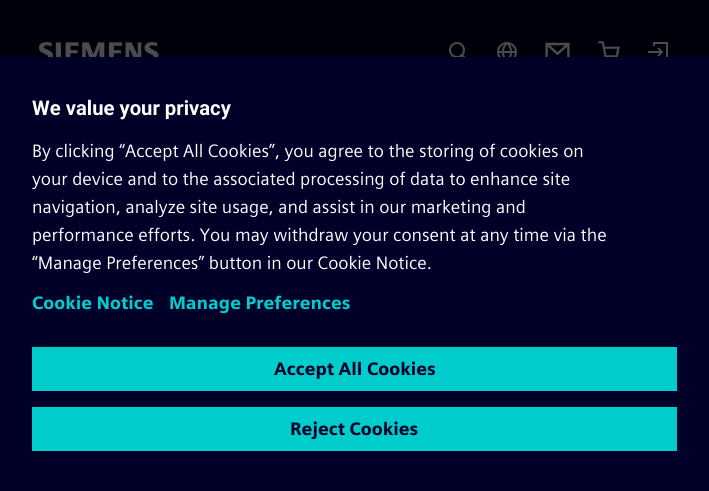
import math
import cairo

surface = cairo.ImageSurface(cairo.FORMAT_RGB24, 709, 491)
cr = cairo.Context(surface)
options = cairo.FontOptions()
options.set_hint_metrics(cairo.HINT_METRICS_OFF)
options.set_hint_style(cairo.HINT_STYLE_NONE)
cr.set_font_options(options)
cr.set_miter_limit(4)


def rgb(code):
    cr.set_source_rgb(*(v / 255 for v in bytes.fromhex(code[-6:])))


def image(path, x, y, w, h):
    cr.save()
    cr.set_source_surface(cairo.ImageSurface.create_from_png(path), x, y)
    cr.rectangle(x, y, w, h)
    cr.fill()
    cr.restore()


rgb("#00000c")
cr.paint()
image("img/1.png", 39, 42, 120, 15)
image("img/2.png", 449, 42, 17, 15)
cr.rectangle(448, 41, 22, 22)
rgb("#000000")
cr.stroke()
image("img/3.png", 497, 42, 20, 15)
image("img/4.png", 545, 42, 25, 15)
image("img/5.png", 598, 41, 22, 16)
image("img/6.png", 648, 42, 20, 15)
for x, y, w, h, color in [
    (0, 57, 709, 434, "#000028"),
    (32, 347, 645, 44, "#00cccc"),
    (32, 407, 645, 44, "#00cccc"),
]:
    rgb(color)
    cr.rectangle(x, y, w, h)
    cr.fill()
cr.select_font_face("Roboto", cairo.FONT_SLANT_NORMAL, cairo.FONT_WEIGHT_BOLD)
cr.set_font_size(20.25)
rgb("#ffffff")
cr.move_to(32, 115)
cr.show_text("We value your privacy")
cr.select_font_face("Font")
cr.set_font_size(18)
for x, y, s in [
    (32, 157, "By clicking “Accept All Cookies”, you agree to the storing of cookies on"),
    (32, 185, "your device and to the associated processing of data to enhance site"),
    (32, 213, "navigation, analyze site usage, and assist in our marketing and"),
    (32, 241, "performance efforts. You may withdraw your consent at any time via the"),
    (32, 269, "“Manage Preferences” button in our Cookie Notice."),
]:
    cr.move_to(x, y)
    cr.show_text(s)
cr.select_font_face("Font", cairo.FONT_SLANT_NORMAL, cairo.FONT_WEIGHT_BOLD)
rgb("#00cccc")
cr.move_to(32, 309)
cr.show_text("Cookie Notice")
cr.move_to(169, 309)
cr.show_text("Manage Preferences")
rgb("#000028")
cr.move_to(274, 375)
cr.show_text("Accept All Cookies")
cr.move_to(290, 435)
cr.show_text("Reject Cookies")
surface.write_to_png("page.png")
